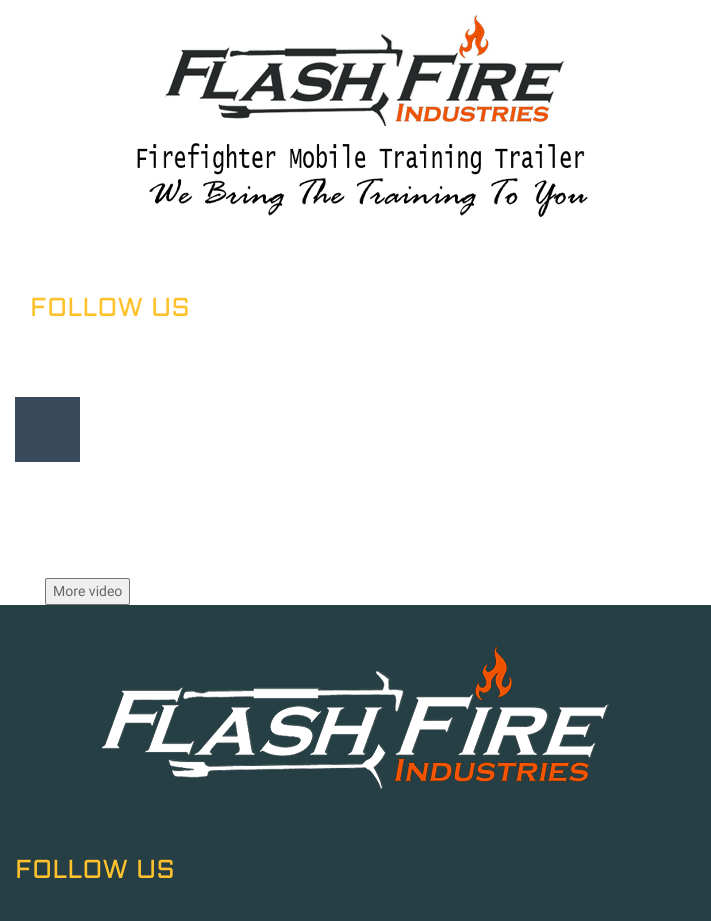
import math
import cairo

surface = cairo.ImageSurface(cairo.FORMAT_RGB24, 711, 921)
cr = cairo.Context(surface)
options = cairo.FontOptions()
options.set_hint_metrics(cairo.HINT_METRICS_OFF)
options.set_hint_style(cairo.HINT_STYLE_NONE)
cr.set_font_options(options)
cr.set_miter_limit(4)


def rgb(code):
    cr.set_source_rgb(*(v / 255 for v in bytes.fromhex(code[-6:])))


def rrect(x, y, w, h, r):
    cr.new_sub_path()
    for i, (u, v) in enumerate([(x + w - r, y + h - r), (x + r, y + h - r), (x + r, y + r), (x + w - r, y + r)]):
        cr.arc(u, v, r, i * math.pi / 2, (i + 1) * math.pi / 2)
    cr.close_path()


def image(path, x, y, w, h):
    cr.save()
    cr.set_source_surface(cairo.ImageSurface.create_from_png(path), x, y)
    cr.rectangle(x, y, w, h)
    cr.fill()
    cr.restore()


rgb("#ffffff")
cr.paint()
image("img/1.png", 137, 15, 451, 203)
rgb("#394a5c")
cr.rectangle(15, 397, 65, 65)
cr.fill()
rgb("#efefef")
rrect(45.5, 578.5, 84, 26, 1.5)
cr.fill_preserve()
rgb("#767676")
cr.set_line_width(1)
cr.stroke()
rgb("#263f44")
cr.rectangle(0, 605, 711, 316)
cr.fill()
image("img/2.png", 102, 646, 507, 144)
cr.select_font_face("Aldrich")
cr.set_font_size(26)
rgb("#ffc12c")
cr.move_to(30, 316)
cr.show_text("FOLLOW US")
cr.select_font_face("Roboto")
cr.set_font_size(14)
rgb("#666666")
cr.move_to(53, 596)
cr.show_text("More video")
cr.select_font_face("Aldrich")
cr.set_font_size(26)
rgb("#ffc12c")
cr.move_to(15, 878)
cr.show_text("FOLLOW US")
surface.write_to_png("page.png")
